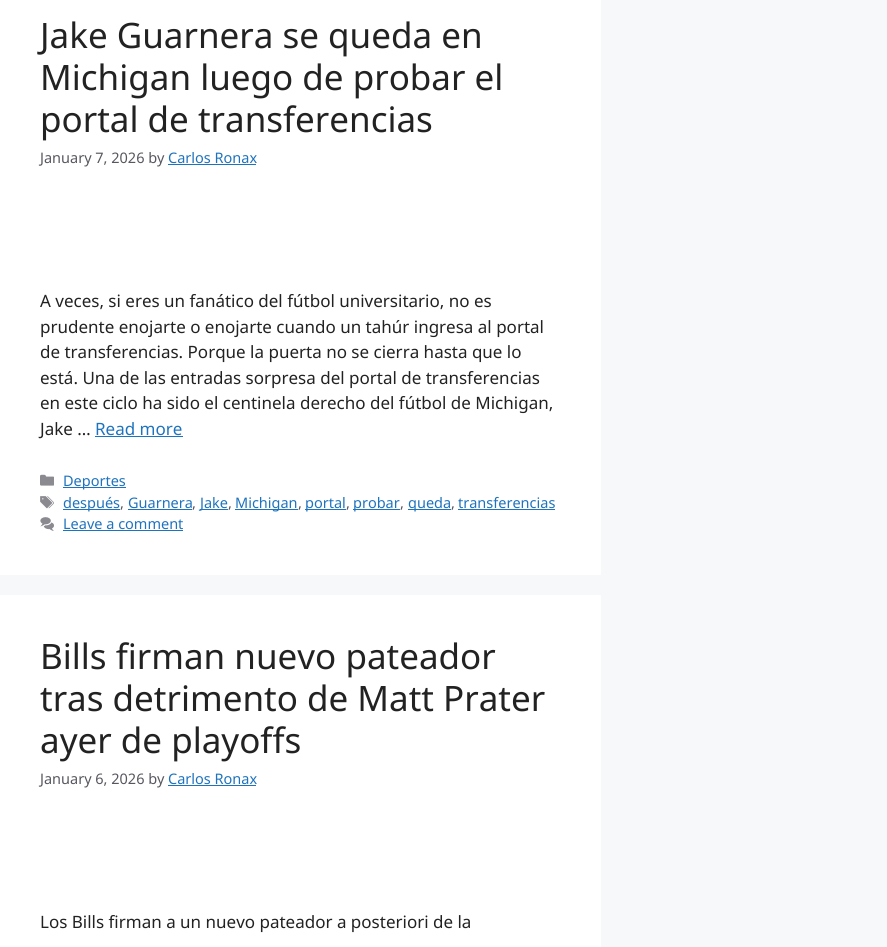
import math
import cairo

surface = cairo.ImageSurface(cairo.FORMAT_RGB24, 887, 947)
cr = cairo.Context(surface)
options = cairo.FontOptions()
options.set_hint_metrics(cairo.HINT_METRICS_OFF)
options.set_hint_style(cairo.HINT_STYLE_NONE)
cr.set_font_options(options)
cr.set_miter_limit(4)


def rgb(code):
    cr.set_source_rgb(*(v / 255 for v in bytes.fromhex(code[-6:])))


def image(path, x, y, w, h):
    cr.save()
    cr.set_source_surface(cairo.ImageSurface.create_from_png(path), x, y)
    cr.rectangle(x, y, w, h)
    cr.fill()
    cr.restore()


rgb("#f7f8f9")
cr.paint()
for x, y, w, h, color in [
    (0, 0, 601, 575, "#ffffff"),
    (168, 164, 88, 1, "#1e73be"),
    (95, 436, 88, 1, "#1e73be"),
]:
    rgb(color)
    cr.rectangle(x, y, w, h)
    cr.fill()
image("img/1.png", 40, 474, 14, 12)
cr.rectangle(63, 487, 63, 1)
cr.fill()
image("img/2.png", 40, 496, 14, 13)
for x, y, w, h, color in [
    (63, 509, 57, 1, "#1e73be"),
    (128, 509, 64, 1, "#1e73be"),
    (200, 509, 28, 1, "#1e73be"),
    (235, 509, 63, 1, "#1e73be"),
    (305, 509, 41, 1, "#1e73be"),
    (353, 509, 47, 1, "#1e73be"),
    (408, 509, 43, 1, "#1e73be"),
    (458, 509, 97, 1, "#1e73be"),
]:
    rgb(color)
    cr.rectangle(x, y, w, h)
    cr.fill()
image("img/3.png", 40, 517, 14, 14)
for x, y, w, h, color in [
    (63, 530, 120, 1, "#1e73be"),
    (0, 595, 601, 352, "#ffffff"),
    (168, 785, 88, 1, "#1e73be"),
]:
    rgb(color)
    cr.rectangle(x, y, w, h)
    cr.fill()
cr.select_font_face("Noto Sans")
cr.set_font_size(35)
rgb("#222222")
for x, y, s in [
    (40, 48, "Jake Guarnera se queda en"),
    (40, 90, "Michigan luego de probar el"),
    (40, 132, "portal de transferencias"),
]:
    cr.move_to(x, y)
    cr.show_text(s)
cr.set_font_size(14.5)
rgb("#575760")
cr.move_to(40, 163)
cr.show_text("January 7, 2026 by")
rgb("#1e73be")
cr.move_to(168, 163)
cr.show_text("Carlos Ronax")
cr.set_font_size(17)
rgb("#222222")
for x, y, s in [
    (40, 307, "A veces, si eres un fanático del fútbol universitario, no es"),
    (40, 333, "prudente enojarte o enojarte cuando un tahúr ingresa al portal"),
    (40, 358, "de transferencias. Porque la puerta no se cierra hasta que lo"),
    (40, 384, "está. Una de las entradas sorpresa del portal de transferencias"),
    (40, 409, "en este ciclo ha sido el centinela derecho del fútbol de Michigan,"),
    (40, 435, "Jake …"),
]:
    cr.move_to(x, y)
    cr.show_text(s)
rgb("#1e73be")
cr.move_to(95, 435)
cr.show_text("Read more")
cr.set_font_size(14.5)
cr.move_to(63, 486)
cr.show_text("Deportes")
cr.move_to(63, 508)
cr.show_text("después")
rgb("#575760")
cr.move_to(120, 508)
cr.show_text(",")
rgb("#1e73be")
cr.move_to(128, 508)
cr.show_text("Guarnera")
rgb("#575760")
cr.move_to(192, 508)
cr.show_text(",")
rgb("#1e73be")
cr.move_to(200, 508)
cr.show_text("Jake")
rgb("#575760")
cr.move_to(228, 508)
cr.show_text(",")
rgb("#1e73be")
cr.move_to(235, 508)
cr.show_text("Michigan")
rgb("#575760")
cr.move_to(298, 508)
cr.show_text(",")
rgb("#1e73be")
cr.move_to(305, 508)
cr.show_text("portal")
rgb("#575760")
cr.move_to(346, 508)
cr.show_text(",")
rgb("#1e73be")
cr.move_to(353, 508)
cr.show_text("probar")
rgb("#575760")
cr.move_to(400, 508)
cr.show_text(",")
rgb("#1e73be")
cr.move_to(408, 508)
cr.show_text("queda")
rgb("#575760")
cr.move_to(451, 508)
cr.show_text(",")
rgb("#1e73be")
cr.move_to(458, 508)
cr.show_text("transferencias")
cr.move_to(63, 529)
cr.show_text("Leave a comment")
cr.set_font_size(35)
rgb("#222222")
for x, y, s in [
    (40, 669, "Bills firman nuevo pateador"),
    (40, 711, "tras detrimento de Matt Prater"),
    (40, 753, "ayer de playoffs"),
]:
    cr.move_to(x, y)
    cr.show_text(s)
cr.set_font_size(14.5)
rgb("#575760")
cr.move_to(40, 784)
cr.show_text("January 6, 2026 by")
rgb("#1e73be")
cr.move_to(168, 784)
cr.show_text("Carlos Ronax")
cr.set_font_size(17)
rgb("#222222")
cr.move_to(40, 928)
cr.show_text("Los Bills firman a un nuevo pateador a posteriori de la")
surface.write_to_png("page.png")
